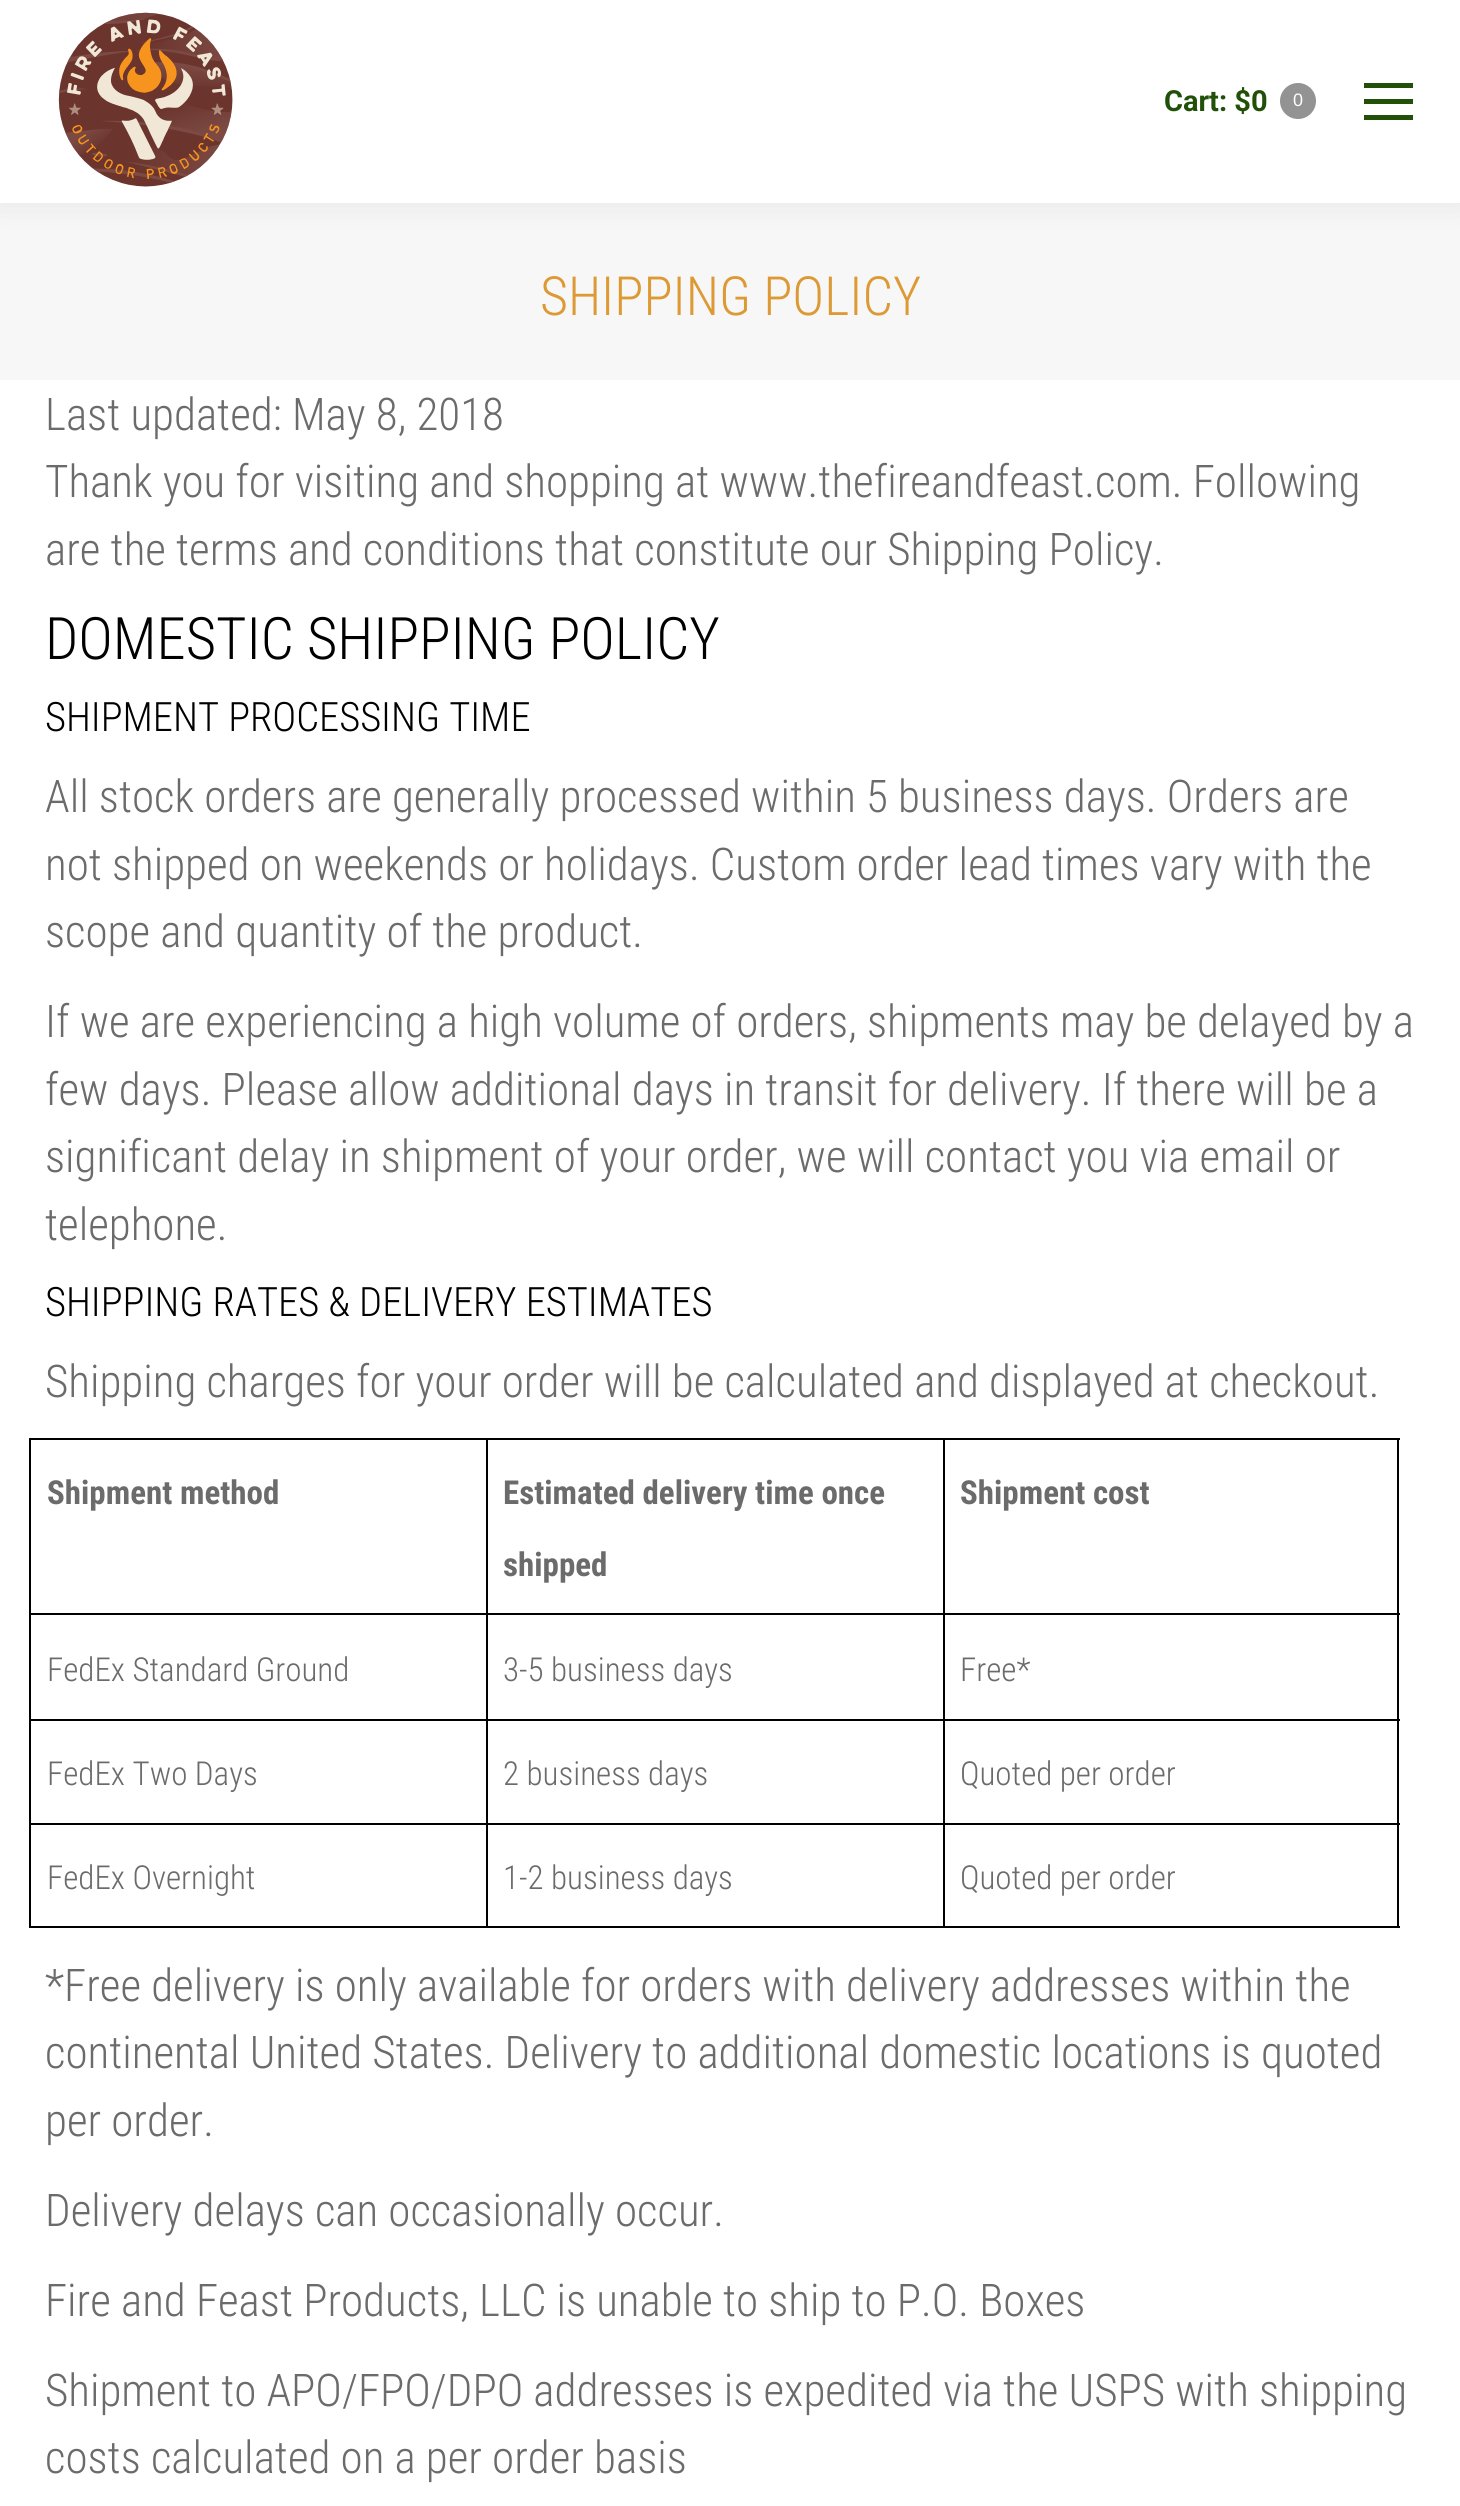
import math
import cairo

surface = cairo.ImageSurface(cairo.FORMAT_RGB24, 1460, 2506)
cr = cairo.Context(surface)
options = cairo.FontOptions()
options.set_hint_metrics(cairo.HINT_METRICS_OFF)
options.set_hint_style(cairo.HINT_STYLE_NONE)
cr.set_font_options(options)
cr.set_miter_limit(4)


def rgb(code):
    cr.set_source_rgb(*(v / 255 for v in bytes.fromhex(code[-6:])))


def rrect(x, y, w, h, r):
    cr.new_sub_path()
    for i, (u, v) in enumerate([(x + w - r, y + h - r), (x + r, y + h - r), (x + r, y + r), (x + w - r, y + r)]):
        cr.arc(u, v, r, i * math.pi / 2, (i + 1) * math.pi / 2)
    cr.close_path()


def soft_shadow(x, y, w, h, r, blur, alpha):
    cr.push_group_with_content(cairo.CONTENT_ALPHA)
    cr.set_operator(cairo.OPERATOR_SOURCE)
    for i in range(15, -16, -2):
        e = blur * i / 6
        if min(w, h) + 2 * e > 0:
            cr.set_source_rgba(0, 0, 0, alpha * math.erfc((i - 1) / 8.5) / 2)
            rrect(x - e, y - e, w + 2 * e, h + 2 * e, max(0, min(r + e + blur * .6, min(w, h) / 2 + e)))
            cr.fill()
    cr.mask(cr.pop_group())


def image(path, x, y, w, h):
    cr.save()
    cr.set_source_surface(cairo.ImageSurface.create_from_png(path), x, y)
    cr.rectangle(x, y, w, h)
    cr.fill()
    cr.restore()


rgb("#ffffff")
cr.paint()
rgb("#f7f7f7")
cr.rectangle(0, 203, 1460, 177)
cr.fill()
rgb("#000000")
soft_shadow(-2, -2, 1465, 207, 0, 17, 0.07)
rgb("#ffffff")
cr.rectangle(0, 0, 1460, 203)
cr.fill()
image("img/1.png", 58, 12, 175, 175)
rgb("#939393")
cr.arc(1298, 101, 18, 0, 2 * math.pi)
cr.fill()
for x, y, w, h, color in [
    (1364, 83, 49, 5, "#215108"),
    (1364, 99, 49, 5, "#215108"),
    (1364, 115, 49, 5, "#215108"),
    (29, 1438, 1371, 2, "#000000"),
    (1397, 1613, 2, 315, "#000000"),
    (1397, 1438, 2, 178, "#000000"),
    (943, 1926, 457, 2, "#000000"),
    (943, 1823, 2, 105, "#000000"),
    (943, 1823, 457, 2, "#000000"),
    (943, 1719, 2, 106, "#000000"),
    (943, 1719, 457, 2, "#000000"),
    (943, 1613, 2, 108, "#000000"),
    (943, 1613, 457, 2, "#000000"),
    (943, 1438, 2, 178, "#000000"),
    (486, 1926, 459, 2, "#000000"),
    (486, 1823, 2, 105, "#000000"),
    (486, 1823, 459, 2, "#000000"),
    (486, 1719, 2, 106, "#000000"),
    (486, 1719, 459, 2, "#000000"),
    (486, 1613, 2, 108, "#000000"),
    (486, 1613, 459, 2, "#000000"),
    (486, 1438, 2, 178, "#000000"),
    (29, 1926, 459, 2, "#000000"),
    (29, 1823, 2, 105, "#000000"),
    (29, 1823, 459, 2, "#000000"),
    (29, 1719, 2, 106, "#000000"),
    (29, 1719, 459, 2, "#000000"),
    (29, 1613, 2, 108, "#000000"),
    (29, 1613, 459, 2, "#000000"),
    (29, 1438, 2, 178, "#000000"),
]:
    rgb(color)
    cr.rectangle(x, y, w, h)
    cr.fill()
cr.select_font_face("Roboto", cairo.FONT_SLANT_NORMAL, cairo.FONT_WEIGHT_BOLD)
cr.set_font_size(29)
rgb("#215108")
cr.move_to(1164, 111)
cr.show_text("Cart: $0")
cr.select_font_face("Liberation Sans")
cr.set_font_size(18)
rgb("#ffffff")
cr.move_to(1293, 106)
cr.show_text("0")
cr.select_font_face("Roboto Condensed Light")
cr.set_font_size(54)
rgb("#dd9933")
cr.move_to(540, 315)
cr.show_text("SHIPPING POLICY")
cr.set_font_size(45)
rgb("#6b6b6b")
for x, y, s in [
    (45, 430, "Last updated: May 8, 2018"),
    (45, 497, "Thank you for visiting and shopping at www.thefireandfeast.com. Following"),
    (45, 565, "are the terms and conditions that constitute our Shipping Policy."),
]:
    cr.move_to(x, y)
    cr.show_text(s)
cr.set_font_size(58.5)
rgb("#000000")
cr.move_to(45, 659)
cr.show_text("DOMESTIC SHIPPING POLICY")
cr.set_font_size(40.5)
cr.move_to(45, 731)
cr.show_text("SHIPMENT PROCESSING TIME")
cr.set_font_size(45)
rgb("#6b6b6b")
for x, y, s in [
    (45, 812, "All stock orders are generally processed within 5 business days. Orders are"),
    (45, 880, "not shipped on weekends or holidays. Custom order lead times vary with the"),
    (45, 947, "scope and quantity of the product."),
    (45, 1037, "If we are experiencing a high volume of orders, shipments may be delayed by a"),
    (45, 1105, "few days. Please allow additional days in transit for delivery. If there will be a"),
    (45, 1172, "significant delay in shipment of your order, we will contact you via email or"),
    (45, 1240, "telephone."),
]:
    cr.move_to(x, y)
    cr.show_text(s)
cr.set_font_size(40.5)
rgb("#000000")
cr.move_to(45, 1316)
cr.show_text("SHIPPING RATES & DELIVERY ESTIMATES")
cr.set_font_size(45)
rgb("#6b6b6b")
cr.move_to(45, 1397)
cr.show_text("Shipping charges for your order will be calculated and displayed at checkout.")
cr.select_font_face("Roboto Condensed", cairo.FONT_SLANT_NORMAL, cairo.FONT_WEIGHT_BOLD)
cr.set_font_size(33)
for x, y, s in [
    (47, 1504, "Shipment method"),
    (503, 1504, "Estimated delivery time once"),
    (503, 1576, "shipped"),
    (960, 1504, "Shipment cost"),
]:
    cr.move_to(x, y)
    cr.show_text(s)
cr.select_font_face("Roboto Condensed Light")
for x, y, s in [
    (47, 1681, "FedEx Standard Ground"),
    (503, 1681, "3-5 business days"),
    (960, 1681, "Free*"),
    (47, 1785, "FedEx Two Days"),
    (503, 1785, "2 business days"),
    (960, 1785, "Quoted per order"),
    (47, 1889, "FedEx Overnight"),
    (503, 1889, "1-2 business days"),
    (960, 1889, "Quoted per order"),
]:
    cr.move_to(x, y)
    cr.show_text(s)
cr.set_font_size(45)
for x, y, s in [
    (45, 2001, "*Free delivery is only available for orders with delivery addresses within the"),
    (45, 2068, "continental United States. Delivery to additional domestic locations is quoted"),
    (45, 2136, "per order."),
    (45, 2226, "Delivery delays can occasionally occur."),
    (45, 2316, "Fire and Feast Products, LLC is unable to ship to P.O. Boxes"),
    (45, 2406, "Shipment to APO/FPO/DPO addresses is expedited via the USPS with shipping"),
    (45, 2473, "costs calculated on a per order basis"),
]:
    cr.move_to(x, y)
    cr.show_text(s)
surface.write_to_png("page.png")
